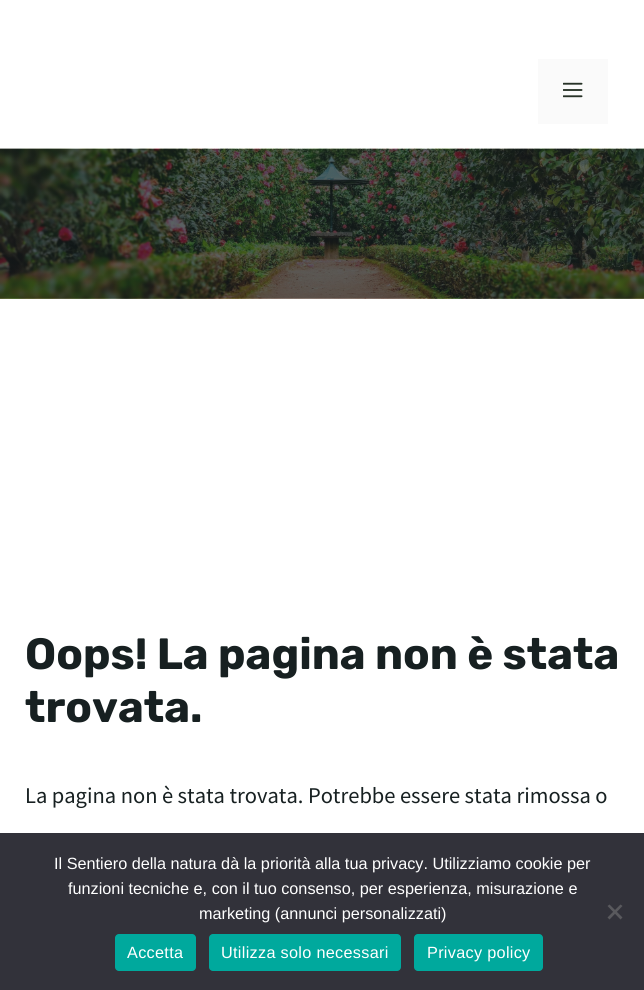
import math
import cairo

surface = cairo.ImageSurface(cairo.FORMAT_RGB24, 644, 990)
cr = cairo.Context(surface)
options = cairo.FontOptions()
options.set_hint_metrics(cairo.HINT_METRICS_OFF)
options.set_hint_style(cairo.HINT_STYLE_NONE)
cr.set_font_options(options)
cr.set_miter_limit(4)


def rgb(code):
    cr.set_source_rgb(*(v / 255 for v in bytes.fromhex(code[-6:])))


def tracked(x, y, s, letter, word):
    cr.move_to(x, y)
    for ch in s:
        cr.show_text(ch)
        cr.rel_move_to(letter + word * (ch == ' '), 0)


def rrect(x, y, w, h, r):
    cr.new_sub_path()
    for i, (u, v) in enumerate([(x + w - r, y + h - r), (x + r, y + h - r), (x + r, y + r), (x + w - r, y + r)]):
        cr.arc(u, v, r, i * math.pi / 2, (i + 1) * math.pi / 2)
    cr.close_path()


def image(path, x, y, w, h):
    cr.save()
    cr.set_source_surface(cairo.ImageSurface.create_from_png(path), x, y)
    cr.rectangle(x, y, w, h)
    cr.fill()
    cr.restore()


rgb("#ffffff")
cr.paint()
rgb("#fafafa")
cr.rectangle(538, 59, 70, 65)
cr.fill()
image("img/1.png", 563, 82, 20, 16)
image("img/2.png", 0, 148, 644, 151)
rgb("#32323a")
cr.rectangle(0, 833, 644, 157)
cr.fill()
rgb("#59595d")
cr.new_path()
cr.move_to(620.5, 904.5)
cr.line_to(622.5, 906)
cr.line_to(609.5, 919.5)
cr.line_to(607.5, 917.5)
cr.close_path()
cr.fill()
cr.new_path()
cr.move_to(607.5, 906)
cr.line_to(609.5, 904.5)
cr.line_to(622.5, 917.5)
cr.line_to(620.5, 919.5)
cr.close_path()
cr.fill()
rgb("#00a99d")
rrect(115, 934, 81, 37, 4)
cr.fill()
rrect(209, 934, 192, 37, 4)
cr.fill()
rrect(414, 934, 129, 37, 4)
cr.fill()
cr.select_font_face("Rubik", cairo.FONT_SLANT_NORMAL, cairo.FONT_WEIGHT_BOLD)
cr.set_font_size(43.75)
rgb("#172021")
cr.move_to(25, 669)
cr.show_text("Oops! La pagina non è stata")
cr.move_to(25, 722)
cr.show_text("trovata.")
cr.select_font_face("Source Sans Pro")
cr.set_font_size(22.5)
cr.move_to(25, 803)
cr.show_text("La pagina non è stata trovata. Potrebbe essere stata rimossa o")
cr.select_font_face("Liberation Sans")
cr.set_font_size(16.25)
rgb("#ffffff")
for x, y, s in [
    (54, 869, "Il Sentiero della natura dà la priorità alla tua privacy. Utilizziamo cookie per"),
    (68, 894, "funzioni tecniche e, con il tuo consenso, per esperienza, misurazione e"),
    (199, 919, "marketing (annunci personalizzati)"),
]:
    cr.move_to(x, y)
    cr.show_text(s)
for x, y, s in [
    (127, 958, "Accetta"),
    (221, 958, "Utilizza solo necessari"),
    (427, 958, "Privacy policy"),
]:
    tracked(x, y, s, 0.3, 0)
surface.write_to_png("page.png")
